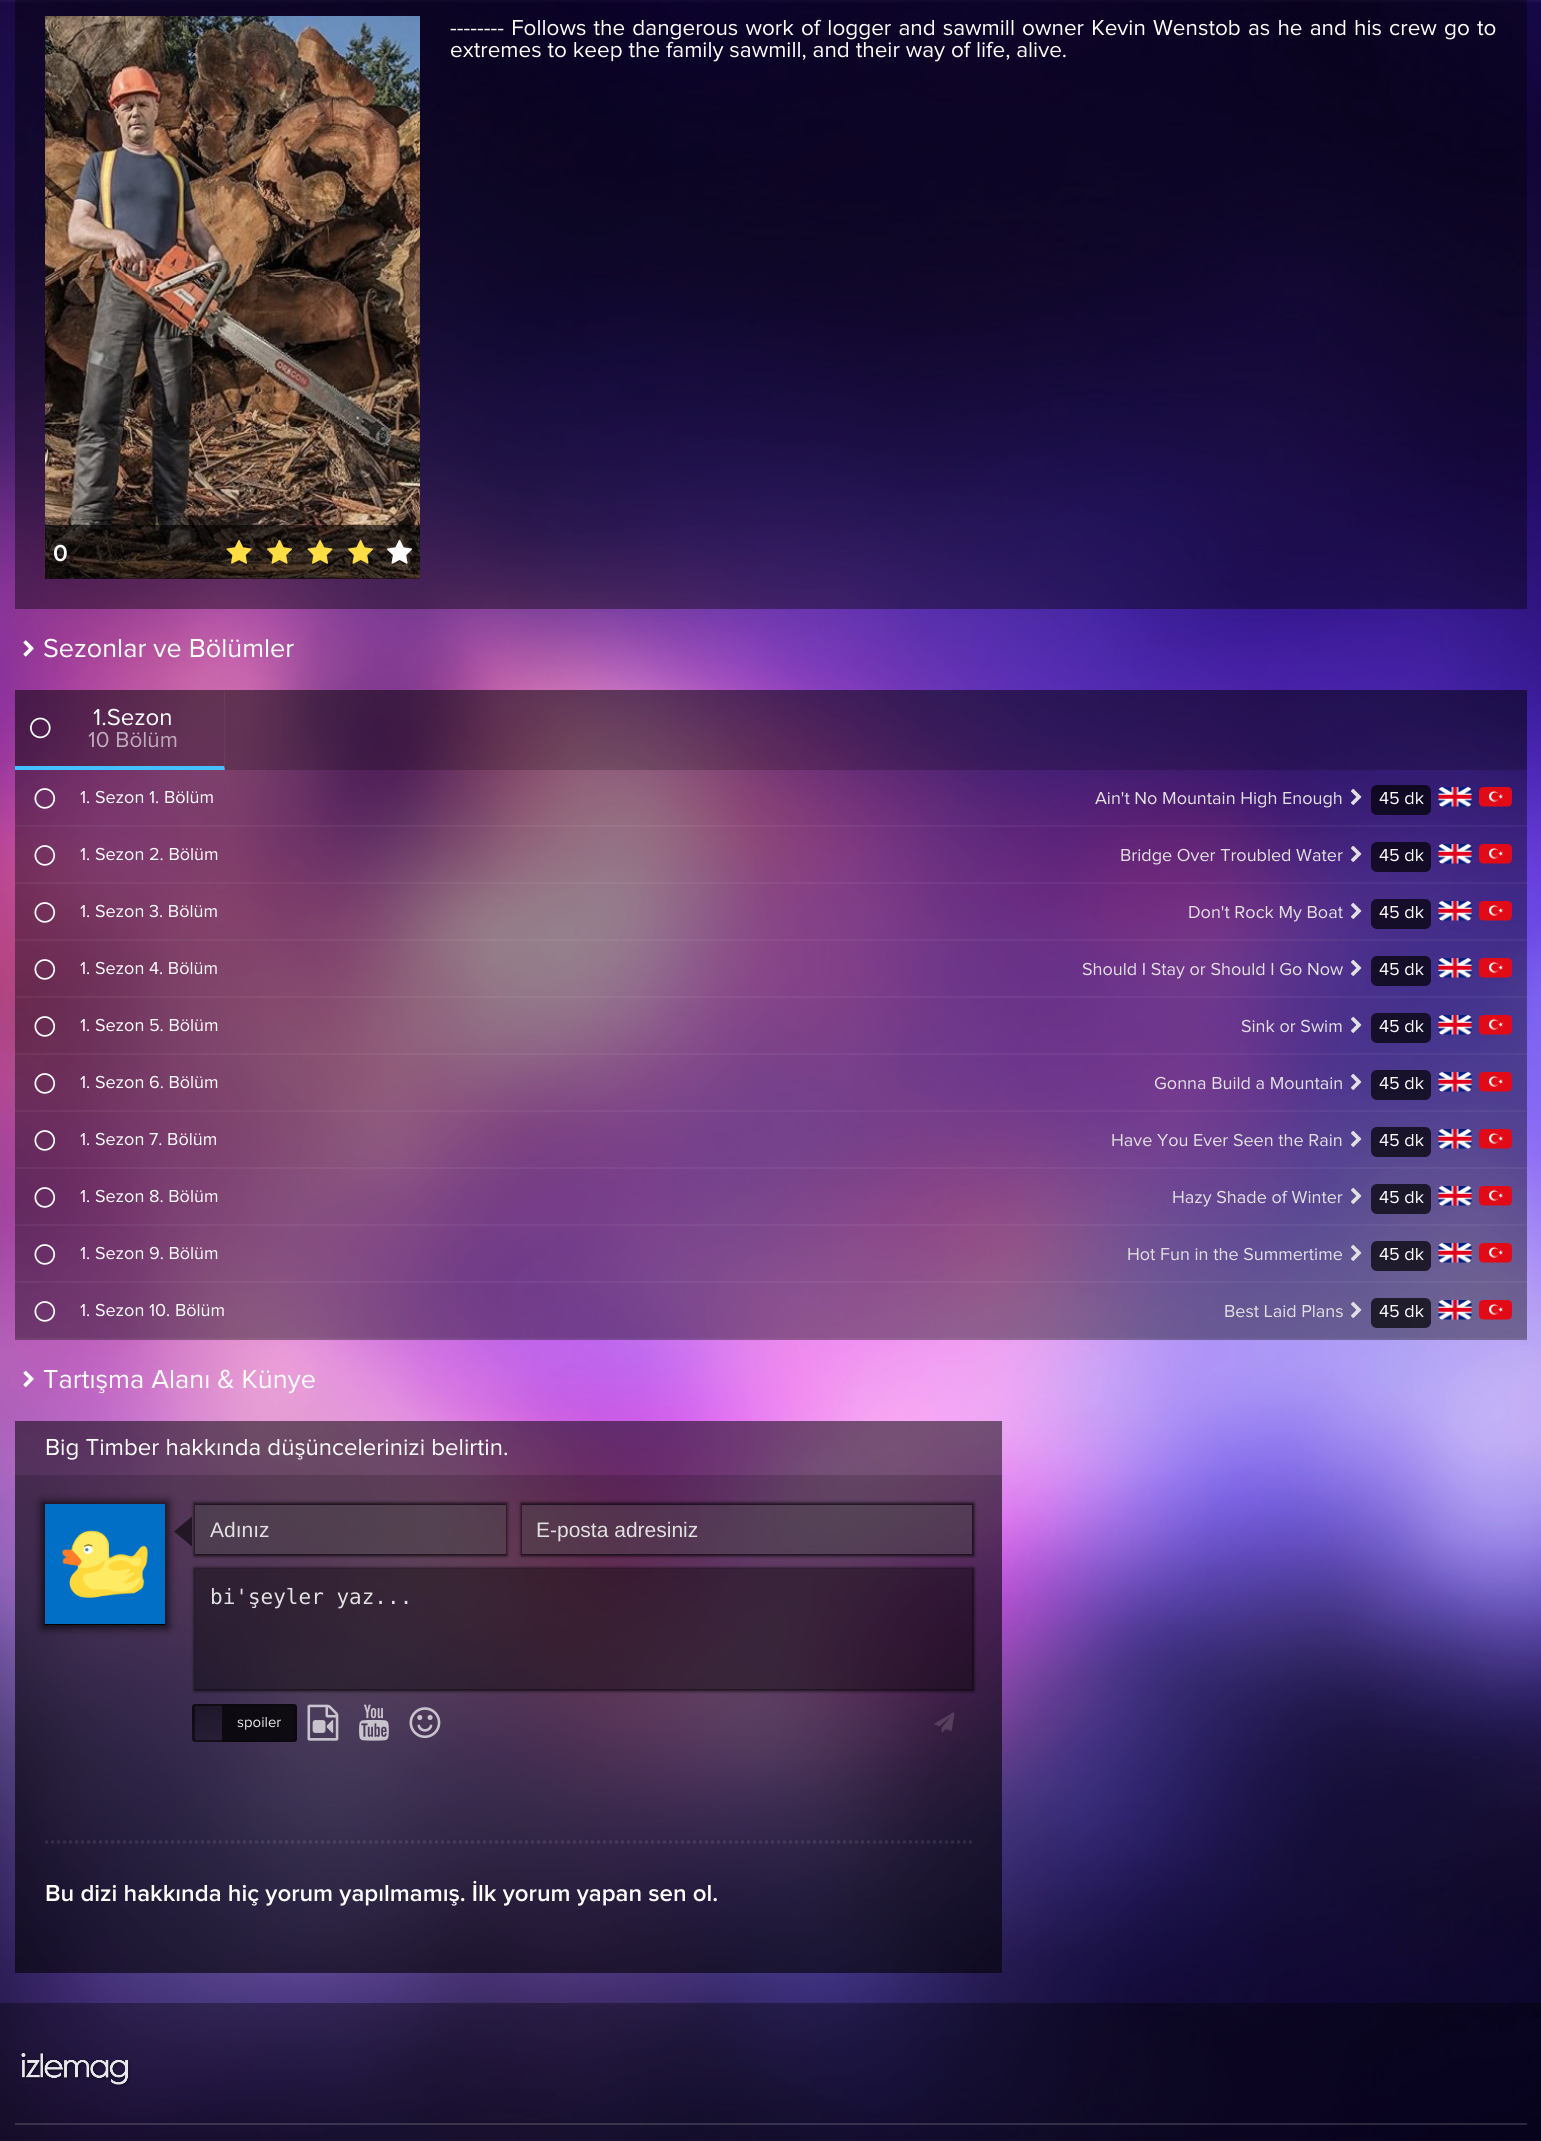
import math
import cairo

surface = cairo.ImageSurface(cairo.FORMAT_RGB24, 1541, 2141)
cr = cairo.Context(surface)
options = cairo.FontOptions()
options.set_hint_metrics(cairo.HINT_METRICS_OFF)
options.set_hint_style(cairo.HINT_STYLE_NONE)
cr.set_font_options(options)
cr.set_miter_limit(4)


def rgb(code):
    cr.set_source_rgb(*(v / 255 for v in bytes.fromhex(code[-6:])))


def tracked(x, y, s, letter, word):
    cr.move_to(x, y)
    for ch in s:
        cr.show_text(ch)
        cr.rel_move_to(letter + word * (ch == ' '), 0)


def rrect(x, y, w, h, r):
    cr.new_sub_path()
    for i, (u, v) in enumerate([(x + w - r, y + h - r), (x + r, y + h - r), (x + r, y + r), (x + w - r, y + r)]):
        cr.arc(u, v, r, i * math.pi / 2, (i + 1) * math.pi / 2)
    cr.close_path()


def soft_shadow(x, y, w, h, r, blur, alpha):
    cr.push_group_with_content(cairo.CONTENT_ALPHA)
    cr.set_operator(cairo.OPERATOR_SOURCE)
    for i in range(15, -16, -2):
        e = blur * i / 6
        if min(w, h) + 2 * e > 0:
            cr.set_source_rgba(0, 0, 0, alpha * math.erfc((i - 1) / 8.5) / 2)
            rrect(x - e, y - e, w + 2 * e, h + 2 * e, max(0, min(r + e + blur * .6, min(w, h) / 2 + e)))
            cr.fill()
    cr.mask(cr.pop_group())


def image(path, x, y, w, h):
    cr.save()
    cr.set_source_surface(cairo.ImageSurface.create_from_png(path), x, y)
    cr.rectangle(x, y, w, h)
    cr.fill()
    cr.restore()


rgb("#ffffff")
cr.paint()
image("img/1.png", 0, 0, 1541, 2141)
cr.set_source_rgba(0, 0, 0, 0.4)
cr.rectangle(15, 0, 1512, 609)
cr.fill()
image("img/2.png", 45, 16, 375, 563)
cr.set_source_rgba(0, 0, 0, 0.6)
cr.rectangle(45, 525, 375, 54)
cr.fill()
image("img/3.png", 226, 539, 26, 25)
image("img/4.png", 267, 539, 25, 25)
image("img/5.png", 307, 539, 26, 25)
image("img/6.png", 348, 539, 25, 25)
image("img/7.png", 387, 539, 25, 25)
image("img/8.png", 23, 640, 11, 17)
cr.set_source_rgba(0, 0, 0, 0.4)
cr.rectangle(15, 690, 1512, 650)
cr.fill()
cr.set_source_rgba(0, 0, 0, 0.2)
cr.rectangle(15, 690, 1512, 80)
cr.fill()
rgb("#6b3d5d")
cr.new_path()
cr.move_to(225, 690)
cr.line_to(225, 770)
cr.line_to(224, 766)
cr.line_to(224, 690)
cr.close_path()
cr.fill()
rgb("#44c0fe")
cr.new_path()
cr.move_to(225, 770)
cr.line_to(15, 770)
cr.line_to(15, 766)
cr.line_to(224, 766)
cr.close_path()
cr.fill()
image("img/9.png", 30, 717, 21, 22)
cr.set_source_rgba(1, 1, 1, 0.05)
cr.rectangle(15, 825, 1512, 2)
cr.fill()
image("img/10.png", 34, 788, 22, 21)
image("img/11.png", 1350, 788, 12, 17)
cr.set_source_rgba(0, 0, 0, 0.7)
rrect(1371, 785, 60, 30, 6)
cr.fill()
image("img/12.png", 1438, 787, 34, 20)
image("img/13.png", 1478, 787, 34, 20)
cr.set_source_rgba(1, 1, 1, 0.05)
cr.rectangle(15, 882, 1512, 2)
cr.fill()
image("img/14.png", 34, 845, 22, 21)
image("img/15.png", 1350, 845, 12, 17)
cr.set_source_rgba(0, 0, 0, 0.7)
rrect(1371, 842, 60, 30, 6)
cr.fill()
image("img/16.png", 1438, 844, 34, 20)
image("img/17.png", 1478, 844, 34, 20)
cr.set_source_rgba(1, 1, 1, 0.05)
cr.rectangle(15, 939, 1512, 2)
cr.fill()
image("img/18.png", 34, 902, 22, 21)
image("img/19.png", 1350, 902, 12, 17)
cr.set_source_rgba(0, 0, 0, 0.7)
rrect(1371, 899, 60, 30, 6)
cr.fill()
image("img/20.png", 1438, 901, 34, 20)
image("img/21.png", 1478, 901, 34, 20)
cr.set_source_rgba(1, 1, 1, 0.05)
cr.rectangle(15, 996, 1512, 2)
cr.fill()
image("img/22.png", 34, 959, 22, 21)
image("img/23.png", 1350, 959, 12, 17)
cr.set_source_rgba(0, 0, 0, 0.7)
rrect(1371, 956, 60, 30, 6)
cr.fill()
image("img/24.png", 1438, 958, 34, 20)
image("img/25.png", 1478, 958, 34, 20)
cr.set_source_rgba(1, 1, 1, 0.05)
cr.rectangle(15, 1053, 1512, 2)
cr.fill()
image("img/26.png", 34, 1016, 22, 21)
image("img/27.png", 1350, 1016, 12, 17)
cr.set_source_rgba(0, 0, 0, 0.7)
rrect(1371, 1013, 60, 30, 6)
cr.fill()
image("img/28.png", 1438, 1015, 34, 20)
image("img/29.png", 1478, 1015, 34, 20)
cr.set_source_rgba(1, 1, 1, 0.05)
cr.rectangle(15, 1110, 1512, 2)
cr.fill()
image("img/30.png", 34, 1073, 22, 21)
image("img/31.png", 1351, 1073, 11, 17)
cr.set_source_rgba(0, 0, 0, 0.7)
rrect(1371, 1070, 60, 30, 6)
cr.fill()
image("img/32.png", 1438, 1072, 34, 20)
image("img/33.png", 1478, 1072, 34, 20)
cr.set_source_rgba(1, 1, 1, 0.05)
cr.rectangle(15, 1167, 1512, 2)
cr.fill()
image("img/34.png", 34, 1130, 22, 21)
image("img/35.png", 1351, 1130, 11, 17)
cr.set_source_rgba(0, 0, 0, 0.7)
rrect(1371, 1127, 60, 30, 6)
cr.fill()
image("img/36.png", 1438, 1129, 34, 20)
image("img/37.png", 1478, 1129, 34, 20)
cr.set_source_rgba(1, 1, 1, 0.05)
cr.rectangle(15, 1224, 1512, 2)
cr.fill()
image("img/38.png", 34, 1187, 22, 21)
image("img/39.png", 1351, 1187, 11, 17)
cr.set_source_rgba(0, 0, 0, 0.7)
rrect(1371, 1184, 60, 30, 6)
cr.fill()
image("img/40.png", 1438, 1186, 34, 20)
image("img/41.png", 1478, 1186, 34, 20)
cr.set_source_rgba(1, 1, 1, 0.05)
cr.rectangle(15, 1281, 1512, 2)
cr.fill()
image("img/42.png", 34, 1244, 22, 21)
image("img/43.png", 1351, 1244, 11, 17)
cr.set_source_rgba(0, 0, 0, 0.7)
rrect(1371, 1241, 60, 30, 6)
cr.fill()
image("img/44.png", 1438, 1243, 34, 20)
image("img/45.png", 1478, 1243, 34, 20)
cr.set_source_rgba(1, 1, 1, 0.05)
cr.rectangle(15, 1338, 1512, 2)
cr.fill()
image("img/46.png", 34, 1301, 22, 21)
image("img/47.png", 1351, 1301, 11, 17)
cr.set_source_rgba(0, 0, 0, 0.7)
rrect(1371, 1298, 60, 30, 6)
cr.fill()
image("img/48.png", 1438, 1300, 34, 20)
image("img/49.png", 1478, 1300, 34, 20)
image("img/50.png", 23, 1370, 11, 17)
cr.set_source_rgba(0, 0, 0, 0.4)
cr.rectangle(15, 1421, 987, 552)
cr.fill()
cr.set_source_rgba(0, 0, 0, 0.2)
cr.rectangle(15, 1421, 987, 54)
cr.fill()
cr.set_source_rgba(0, 0, 0, 0.33)
cr.rectangle(15, 1475, 987, 498)
cr.fill()
rgb("#000000")
soft_shadow(42, 1502, 126, 126, 0, 4.5, 0.75)
rgb("#000000")
cr.rectangle(45, 1624, 120, 1)
cr.fill()
image("img/51.png", 45, 1504, 120, 120)
cr.set_source_rgba(0, 0, 0, 0.35)
cr.new_path()
cr.move_to(192, 1516.5)
cr.line_to(192, 1546.5)
cr.line_to(174, 1531.5)
cr.close_path()
cr.fill()
cr.save()
cr.set_fill_rule(cairo.FILL_RULE_EVEN_ODD)
cr.new_path()
cr.move_to(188, 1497)
cr.line_to(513, 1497)
cr.line_to(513, 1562)
cr.line_to(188, 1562)
cr.close_path()
cr.move_to(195, 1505)
cr.line_to(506, 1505)
cr.line_to(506, 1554)
cr.line_to(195, 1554)
cr.close_path()
cr.clip()
rgb("#000000")
soft_shadow(194, 1503, 313, 53, 0, 1.5, 0.75)
cr.restore()
cr.new_path()
cr.move_to(192, 1516.5)
cr.line_to(192, 1546.5)
cr.line_to(174, 1531.5)
cr.close_path()
cr.fill()
cr.set_source_rgba(0.275, 0.275, 0.275, 0.4)
cr.rectangle(195, 1505, 311, 49)
cr.fill()
cr.save()
cr.set_fill_rule(cairo.FILL_RULE_EVEN_ODD)
cr.new_path()
cr.move_to(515, 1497)
cr.line_to(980, 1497)
cr.line_to(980, 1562)
cr.line_to(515, 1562)
cr.close_path()
cr.move_to(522, 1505)
cr.line_to(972, 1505)
cr.line_to(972, 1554)
cr.line_to(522, 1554)
cr.close_path()
cr.clip()
rgb("#000000")
soft_shadow(521, 1503, 453, 53, 0, 1.5, 0.75)
cr.restore()
cr.rectangle(522, 1505, 450, 49)
cr.fill()
cr.save()
cr.set_fill_rule(cairo.FILL_RULE_EVEN_ODD)
cr.new_path()
cr.move_to(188, 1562)
cr.line_to(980, 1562)
cr.line_to(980, 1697)
cr.line_to(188, 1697)
cr.close_path()
cr.move_to(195, 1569)
cr.line_to(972, 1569)
cr.line_to(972, 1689)
cr.line_to(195, 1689)
cr.close_path()
cr.clip()
rgb("#000000")
soft_shadow(194, 1568, 780, 123, 0, 1.5, 0.75)
cr.restore()
cr.set_source_rgba(0, 0, 0, 0.4)
cr.rectangle(195, 1569, 777, 120)
cr.fill()
gradient = cairo.LinearGradient(207, 1704, 207, 1742)
gradient.add_color_stop_rgba(0, 0, 0, 0, 0.5)
gradient.add_color_stop_rgba(1, 0, 0, 0, 0.3)
cr.set_source(gradient)
cr.new_path()
cr.move_to(195, 1704)
cr.line_to(222, 1704)
cr.line_to(222, 1742)
cr.line_to(195, 1742)
cr.curve_to(193.5, 1742, 192, 1740.5, 192, 1739)
cr.line_to(192, 1707)
cr.curve_to(192, 1705.5, 193.5, 1704, 195, 1704)
cr.close_path()
cr.fill()
cr.set_source_rgba(0, 0, 0, 0.5)
cr.new_path()
cr.move_to(196, 1706)
cr.line_to(222, 1706)
cr.line_to(222, 1704)
cr.line_to(195, 1704)
cr.curve_to(193.5, 1704, 192, 1705.5, 192, 1707)
cr.line_to(192, 1739)
cr.curve_to(192, 1740.5, 193.5, 1742, 195, 1742)
cr.line_to(222, 1742)
cr.line_to(222, 1740)
cr.line_to(196, 1740)
cr.curve_to(196, 1740, 195, 1739, 195, 1738)
cr.line_to(195, 1707)
cr.curve_to(195, 1706, 196, 1706, 196, 1706)
cr.close_path()
cr.fill()
cr.set_source_rgba(0, 0, 0, 0.8)
cr.new_path()
cr.move_to(222, 1704)
cr.line_to(294, 1704)
cr.curve_to(295.5, 1704, 297, 1705.5, 297, 1707)
cr.line_to(297, 1739)
cr.curve_to(297, 1740.5, 295.5, 1742, 294, 1742)
cr.line_to(222, 1742)
cr.close_path()
cr.fill()
cr.set_source_rgba(0, 0, 0, 0.2)
cr.new_path()
cr.move_to(222, 1706)
cr.line_to(292, 1706)
cr.curve_to(293, 1706, 294, 1706, 294, 1707)
cr.line_to(294, 1738)
cr.curve_to(294, 1739, 293, 1740, 292, 1740)
cr.line_to(222, 1740)
cr.line_to(222, 1742)
cr.line_to(294, 1742)
cr.curve_to(296, 1742, 297, 1741, 297, 1739)
cr.line_to(297, 1707)
cr.curve_to(297, 1705, 296, 1704, 294, 1704)
cr.line_to(222, 1704)
cr.close_path()
cr.fill()
image("img/52.png", 307, 1704, 32, 37)
image("img/53.png", 359, 1704, 30, 37)
image("img/54.png", 409, 1707, 32, 32)
image("img/55.png", 934, 1712, 21, 21)
cr.new_path()
cr.move_to(45, 1842)
cr.line_to(972, 1842)
cr.set_source_rgba(1, 1, 1, 0.1)
cr.set_line_width(3)
cr.set_dash([3, 3])
cr.stroke()
cr.set_source_rgba(0, 0, 0, 0.35)
cr.rectangle(0, 2003, 1541, 138)
cr.fill()
image("img/56.png", 21, 2052, 110, 35)
cr.set_source_rgba(1, 1, 1, 0.15)
cr.rectangle(15, 2123, 1512, 2)
cr.fill()
cr.select_font_face("Proxima Nova")
cr.set_font_size(22.5)
rgb("#ffffff")
tracked(450, 35, "-------- Follows the dangerous work of logger and sawmill owner Kevin Wenstob as he and his crew go to", 0, 1.3)
cr.move_to(450, 57)
cr.show_text("extremes to keep the family sawmill, and their way of life, alive.")
cr.select_font_face("Proxima Nova SemiBold")
cr.set_font_size(24)
cr.move_to(53, 561)
cr.show_text("0")
cr.select_font_face("Proxima Nova")
cr.set_font_size(27)
cr.move_to(43, 657)
cr.show_text("Sezonlar ve Bölümler")
cr.set_font_size(24)
cr.move_to(93, 725)
cr.show_text("1.Sezon")
cr.set_font_size(22.5)
rgb("#beaaba")
cr.move_to(88, 747)
cr.show_text("10 Bölüm")
cr.set_font_size(18)
rgb("#ffffff")
cr.move_to(80, 803)
cr.show_text("1. Sezon 1. Bölüm")
rgb("#e1e1e2")
cr.move_to(1095, 804)
cr.show_text("Ain't No Mountain High Enough")
rgb("#ffffff")
cr.move_to(1379, 804)
cr.show_text("45 dk")
cr.move_to(80, 860)
cr.show_text("1. Sezon 2. Bölüm")
rgb("#e1e1e2")
cr.move_to(1120, 861)
cr.show_text("Bridge Over Troubled Water")
rgb("#ffffff")
cr.move_to(1379, 861)
cr.show_text("45 dk")
cr.move_to(80, 917)
cr.show_text("1. Sezon 3. Bölüm")
rgb("#e1e1e2")
cr.move_to(1188, 918)
cr.show_text("Don't Rock My Boat")
rgb("#ffffff")
cr.move_to(1379, 918)
cr.show_text("45 dk")
cr.move_to(80, 974)
cr.show_text("1. Sezon 4. Bölüm")
rgb("#e1e1e2")
cr.move_to(1082, 975)
cr.show_text("Should I Stay or Should I Go Now")
rgb("#ffffff")
cr.move_to(1379, 975)
cr.show_text("45 dk")
cr.move_to(80, 1031)
cr.show_text("1. Sezon 5. Bölüm")
rgb("#e1e1e2")
cr.move_to(1241, 1032)
cr.show_text("Sink or Swim")
rgb("#ffffff")
cr.move_to(1379, 1032)
cr.show_text("45 dk")
cr.move_to(80, 1088)
cr.show_text("1. Sezon 6. Bölüm")
rgb("#e1e1e2")
cr.move_to(1154, 1089)
cr.show_text("Gonna Build a Mountain")
rgb("#ffffff")
cr.move_to(1379, 1089)
cr.show_text("45 dk")
cr.move_to(80, 1145)
cr.show_text("1. Sezon 7. Bölüm")
rgb("#e1e1e2")
cr.move_to(1111, 1146)
cr.show_text("Have You Ever Seen the Rain")
rgb("#ffffff")
cr.move_to(1379, 1146)
cr.show_text("45 dk")
cr.move_to(80, 1202)
cr.show_text("1. Sezon 8. Bölüm")
rgb("#e1e1e2")
cr.move_to(1172, 1203)
cr.show_text("Hazy Shade of Winter")
rgb("#ffffff")
cr.move_to(1379, 1203)
cr.show_text("45 dk")
cr.move_to(80, 1259)
cr.show_text("1. Sezon 9. Bölüm")
rgb("#e1e1e2")
cr.move_to(1127, 1260)
cr.show_text("Hot Fun in the Summertime")
rgb("#ffffff")
cr.move_to(1379, 1260)
cr.show_text("45 dk")
cr.move_to(80, 1316)
cr.show_text("1. Sezon 10. Bölüm")
rgb("#e1e1e2")
cr.move_to(1224, 1317)
cr.show_text("Best Laid Plans")
rgb("#ffffff")
cr.move_to(1379, 1317)
cr.show_text("45 dk")
cr.set_font_size(27)
cr.move_to(43, 1388)
cr.show_text("Tartışma Alanı & Künye")
cr.set_font_size(24)
cr.move_to(45, 1455)
cr.show_text("Big Timber hakkında düşüncelerinizi belirtin.")
cr.select_font_face("Liberation Sans")
cr.set_font_size(21)
rgb("#e1e1e2")
cr.move_to(210, 1537)
cr.show_text("Adınız")
cr.move_to(536, 1537)
cr.show_text("E-posta adresiniz")
cr.select_font_face("DejaVu Sans Mono")
cr.move_to(210, 1604)
cr.show_text("bi'şeyler yaz...")
cr.select_font_face("Proxima Nova")
cr.set_font_size(15)
rgb("#e7e7e7")
cr.move_to(237, 1727)
cr.show_text("spoiler")
cr.select_font_face("Proxima Nova SemiBold")
cr.set_font_size(24)
rgb("#ffffff")
cr.move_to(45, 1901)
cr.show_text("Bu dizi hakkında hiç yorum yapılmamış. İlk yorum yapan sen ol.")
surface.write_to_png("page.png")
